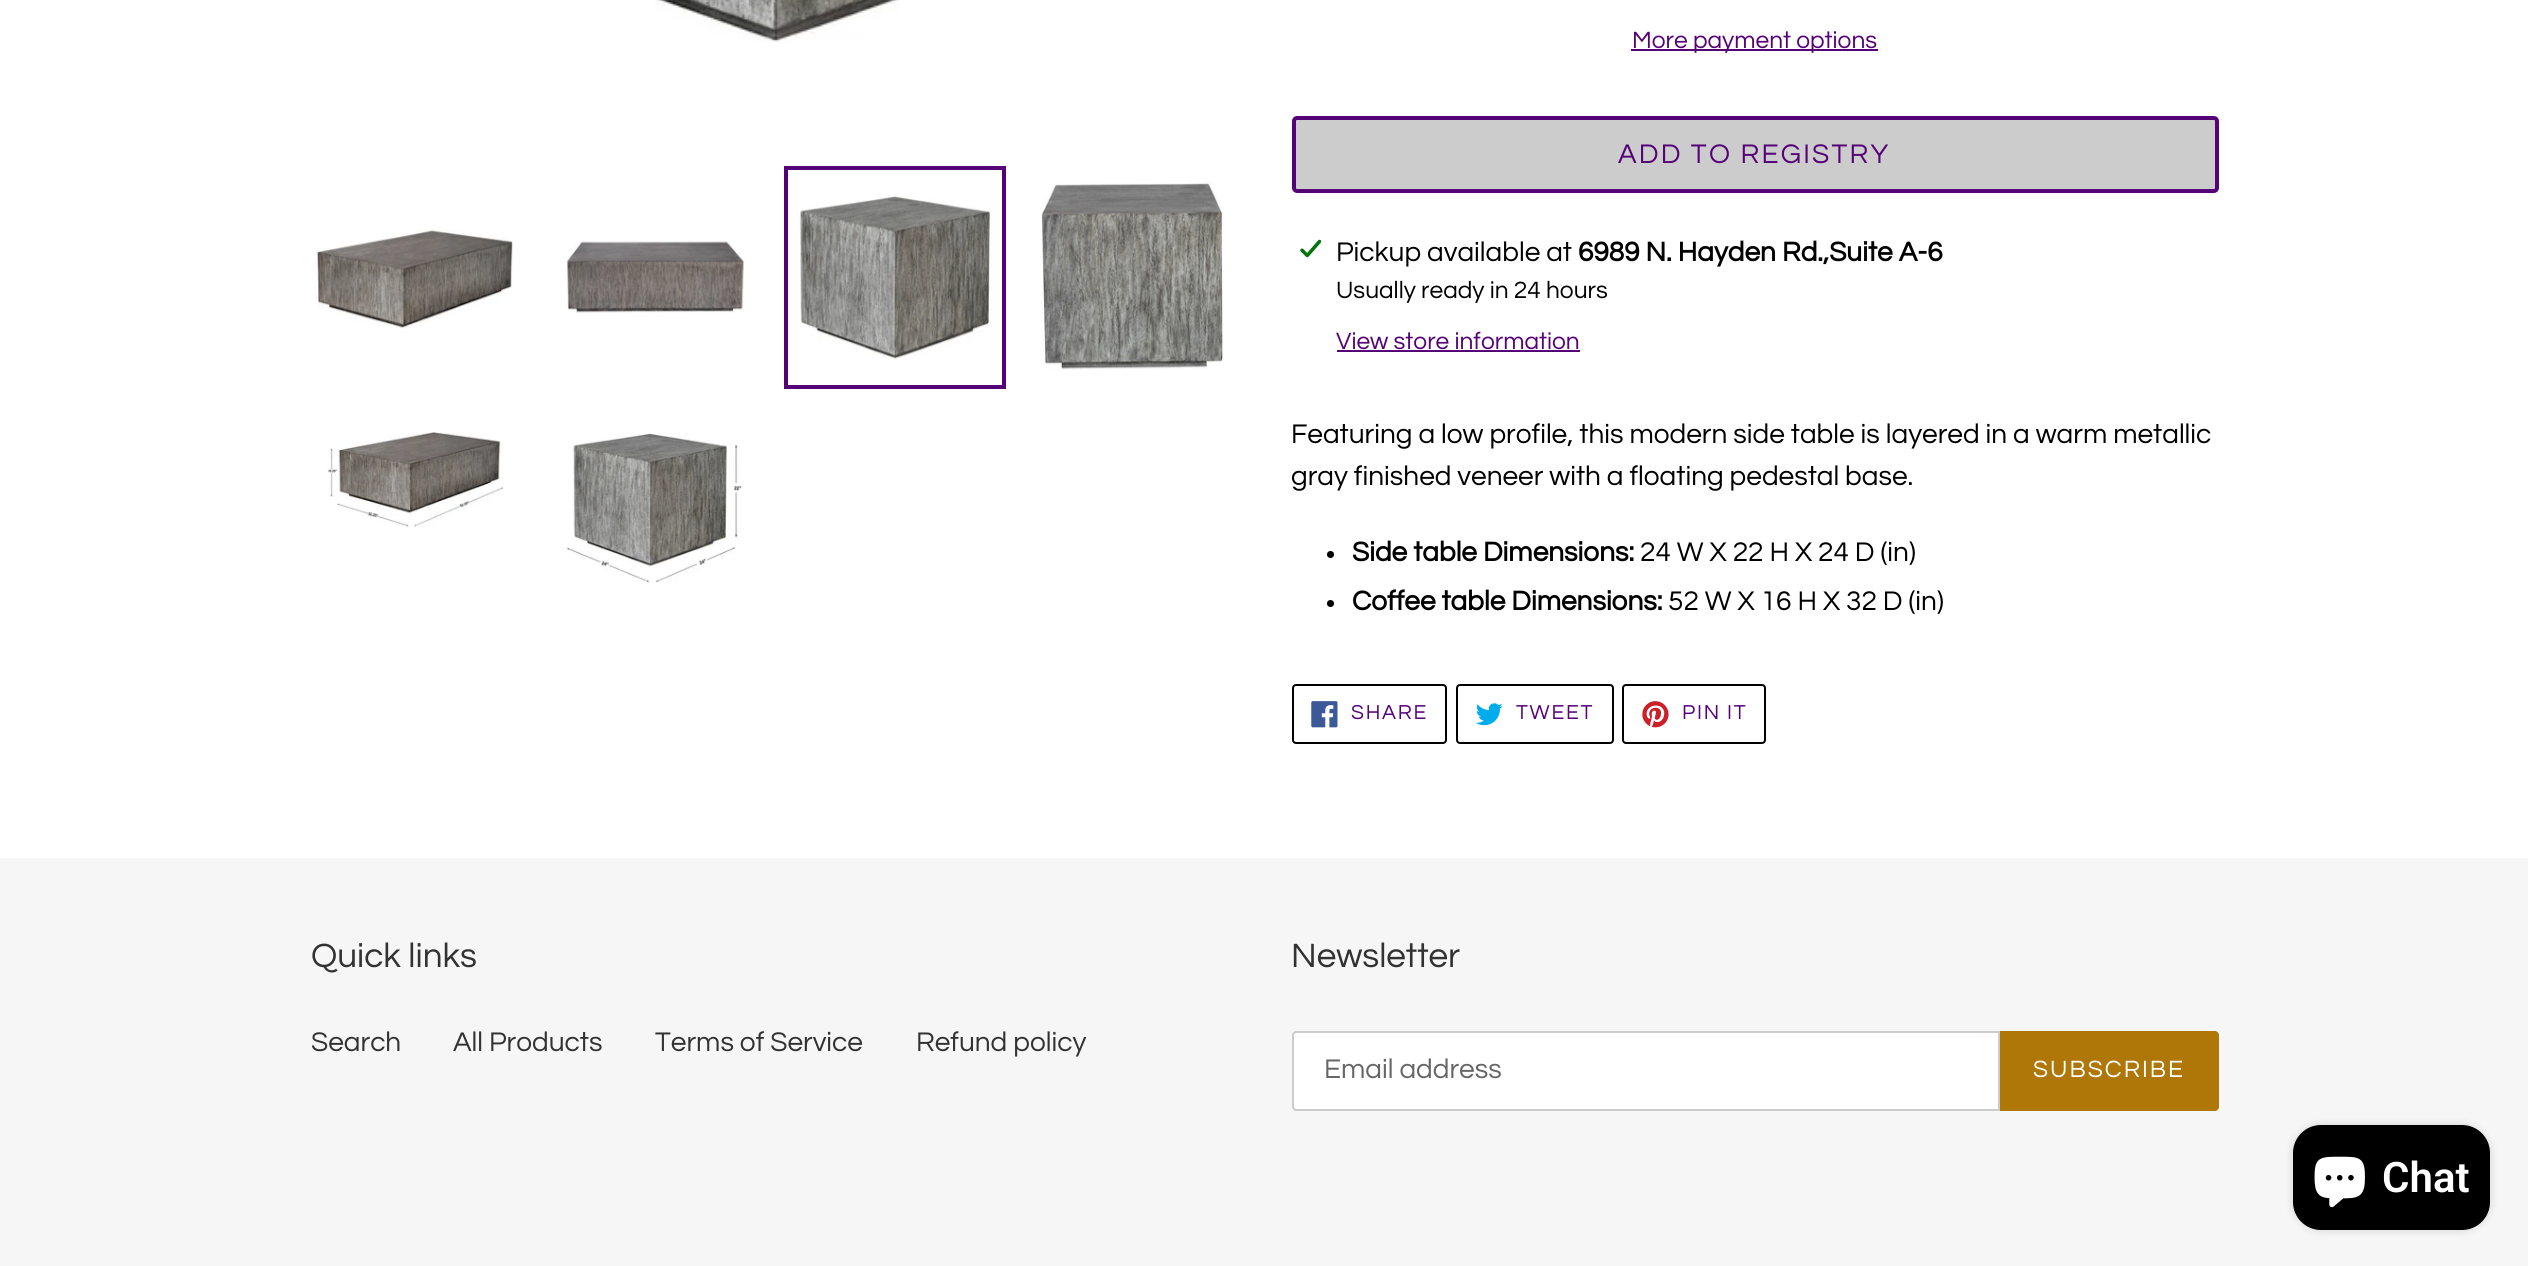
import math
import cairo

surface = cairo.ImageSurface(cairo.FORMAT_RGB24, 2528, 1266)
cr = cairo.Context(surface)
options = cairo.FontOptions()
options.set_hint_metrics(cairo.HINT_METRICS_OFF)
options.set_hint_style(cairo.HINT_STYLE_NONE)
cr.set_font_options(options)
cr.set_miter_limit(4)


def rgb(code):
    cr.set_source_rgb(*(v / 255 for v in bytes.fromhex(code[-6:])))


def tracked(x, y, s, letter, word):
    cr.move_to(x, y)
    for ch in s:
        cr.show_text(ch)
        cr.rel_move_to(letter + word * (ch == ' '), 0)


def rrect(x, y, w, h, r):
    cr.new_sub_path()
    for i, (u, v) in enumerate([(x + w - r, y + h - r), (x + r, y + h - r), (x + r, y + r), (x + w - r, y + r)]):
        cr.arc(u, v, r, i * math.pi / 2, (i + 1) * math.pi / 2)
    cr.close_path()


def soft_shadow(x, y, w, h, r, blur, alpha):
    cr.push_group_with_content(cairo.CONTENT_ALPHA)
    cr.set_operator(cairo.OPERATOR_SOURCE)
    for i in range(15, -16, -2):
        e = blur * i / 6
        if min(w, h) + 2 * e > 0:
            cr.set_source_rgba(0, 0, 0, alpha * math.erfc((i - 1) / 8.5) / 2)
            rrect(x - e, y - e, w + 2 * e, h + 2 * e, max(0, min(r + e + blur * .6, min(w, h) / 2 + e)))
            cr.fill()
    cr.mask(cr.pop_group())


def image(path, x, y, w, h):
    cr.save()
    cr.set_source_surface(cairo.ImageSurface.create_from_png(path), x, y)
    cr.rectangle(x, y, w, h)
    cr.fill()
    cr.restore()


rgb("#ffffff")
cr.paint()
image("img/1.png", 655, 0, 245, 43)
image("img/2.png", 315, 229, 198, 100)
image("img/3.png", 565, 241, 180, 72)
cr.rectangle(786, 168, 218, 219)
rgb("#550278")
cr.set_line_width(4)
cr.stroke()
image("img/4.png", 799, 196, 193, 164)
image("img/5.png", 1041, 181, 183, 189)
image("img/6.png", 327, 432, 176, 95)
image("img/7.png", 567, 433, 175, 150)
cr.rectangle(1631, 49, 247, 2)
cr.fill()
rgb("#cccccc")
rrect(1294, 118, 923, 73, 3)
cr.fill_preserve()
rgb("#550278")
cr.stroke()
image("img/8.png", 1300, 239, 21, 19)
cr.rectangle(1337, 350, 243, 2)
cr.fill()
rgb("#000000")
cr.arc(1330.5, 554.5, 3.5, 0, 2 * math.pi)
cr.fill()
cr.arc(1330.5, 603.5, 3.5, 0, 2 * math.pi)
cr.fill()
rrect(1293, 685, 153, 58, 3)
cr.set_line_width(2)
cr.stroke()
image("img/9.png", 1311, 701, 27, 27)
rrect(1457, 685, 156, 58, 3)
cr.stroke()
image("img/10.png", 1475, 703, 28, 23)
rrect(1623, 685, 142, 58, 3)
cr.stroke()
image("img/11.png", 1642, 701, 27, 27)
rgb("#f6f6f6")
cr.rectangle(0, 858, 2528, 408)
cr.fill()
rgb("#ffffff")
cr.new_path()
cr.move_to(1296, 1032)
cr.line_to(1999, 1032)
cr.line_to(1999, 1110)
cr.line_to(1296, 1110)
cr.curve_to(1294.5, 1110, 1293, 1108.5, 1293, 1107)
cr.line_to(1293, 1035)
cr.curve_to(1293, 1033.5, 1294.5, 1032, 1296, 1032)
cr.close_path()
cr.fill_preserve()
rgb("#cccccc")
cr.stroke()
rgb("#ae7708")
cr.new_path()
cr.move_to(2000, 1031)
cr.line_to(2215, 1031)
cr.curve_to(2217, 1031, 2219, 1033, 2219, 1035)
cr.line_to(2219, 1107)
cr.curve_to(2219, 1109, 2217, 1111, 2215, 1111)
cr.line_to(2000, 1111)
cr.close_path()
cr.fill()
rgb("#000000")
soft_shadow(2293, 1125, 197, 105, 28, 4.5, 0.15)
rgb("#000000")
rrect(2293, 1125, 197, 105, 28)
cr.fill()
image("img/12.png", 2314, 1156, 51, 52)
cr.select_font_face("Questrial")
cr.set_font_size(24.5)
rgb("#550278")
cr.move_to(1632, 48)
cr.show_text("More payment options")
cr.set_font_size(28)
tracked(1618, 163, "ADD TO REGISTRY", 2.25, 0)
rgb("#000000")
cr.move_to(1336, 261)
cr.show_text("Pickup available at")
cr.select_font_face("Questrial", cairo.FONT_SLANT_NORMAL, cairo.FONT_WEIGHT_BOLD)
cr.move_to(1578, 261)
cr.show_text("6989 N. Hayden Rd.,Suite A-6")
cr.select_font_face("Questrial")
cr.set_font_size(24.5)
cr.move_to(1336, 298)
cr.show_text("Usually ready in 24 hours")
rgb("#550278")
cr.move_to(1336, 349)
cr.show_text("View store information")
cr.set_font_size(28)
rgb("#000000")
cr.move_to(1291, 443)
cr.show_text("Featuring a low profile, this modern side table is layered in a warm metallic")
cr.move_to(1291, 485)
cr.show_text("gray finished veneer with a floating pedestal base.")
cr.select_font_face("Questrial", cairo.FONT_SLANT_NORMAL, cairo.FONT_WEIGHT_BOLD)
cr.move_to(1352, 561)
cr.show_text("Side table Dimensions:")
cr.select_font_face("Questrial")
cr.move_to(1640, 561)
cr.show_text("24 W X 22 H X 24 D (in)")
cr.select_font_face("Questrial", cairo.FONT_SLANT_NORMAL, cairo.FONT_WEIGHT_BOLD)
cr.move_to(1352, 610)
cr.show_text("Coffee table Dimensions:")
cr.select_font_face("Questrial")
cr.move_to(1668, 610)
cr.show_text("52 W X 16 H X 32 D (in)")
cr.set_font_size(21)
rgb("#550278")
for x, y, s in [
    (1351, 719, "SHARE"),
    (1516, 719, "TWEET"),
    (1682, 719, "PIN IT"),
]:
    tracked(x, y, s, 1.75, 0)
cr.set_font_size(35)
rgb("#333232")
cr.move_to(311, 967)
cr.show_text("Quick links")
cr.set_font_size(28)
for x, y, s in [
    (311, 1051, "Search"),
    (453, 1051, "All Products"),
    (655, 1051, "Terms of Service"),
    (916, 1051, "Refund policy"),
]:
    cr.move_to(x, y)
    cr.show_text(s)
cr.set_font_size(35)
cr.move_to(1291, 967)
cr.show_text("Newsletter")
cr.set_font_size(28)
rgb("#666666")
cr.move_to(1324, 1078)
cr.show_text("Email address")
cr.set_font_size(24.5)
rgb("#ffffff")
tracked(2033, 1077, "SUBSCRIBE", 2, 0)
cr.select_font_face("Roboto SemiBold")
cr.set_font_size(42)
cr.move_to(2382, 1192)
cr.show_text("Chat")
surface.write_to_png("page.png")
